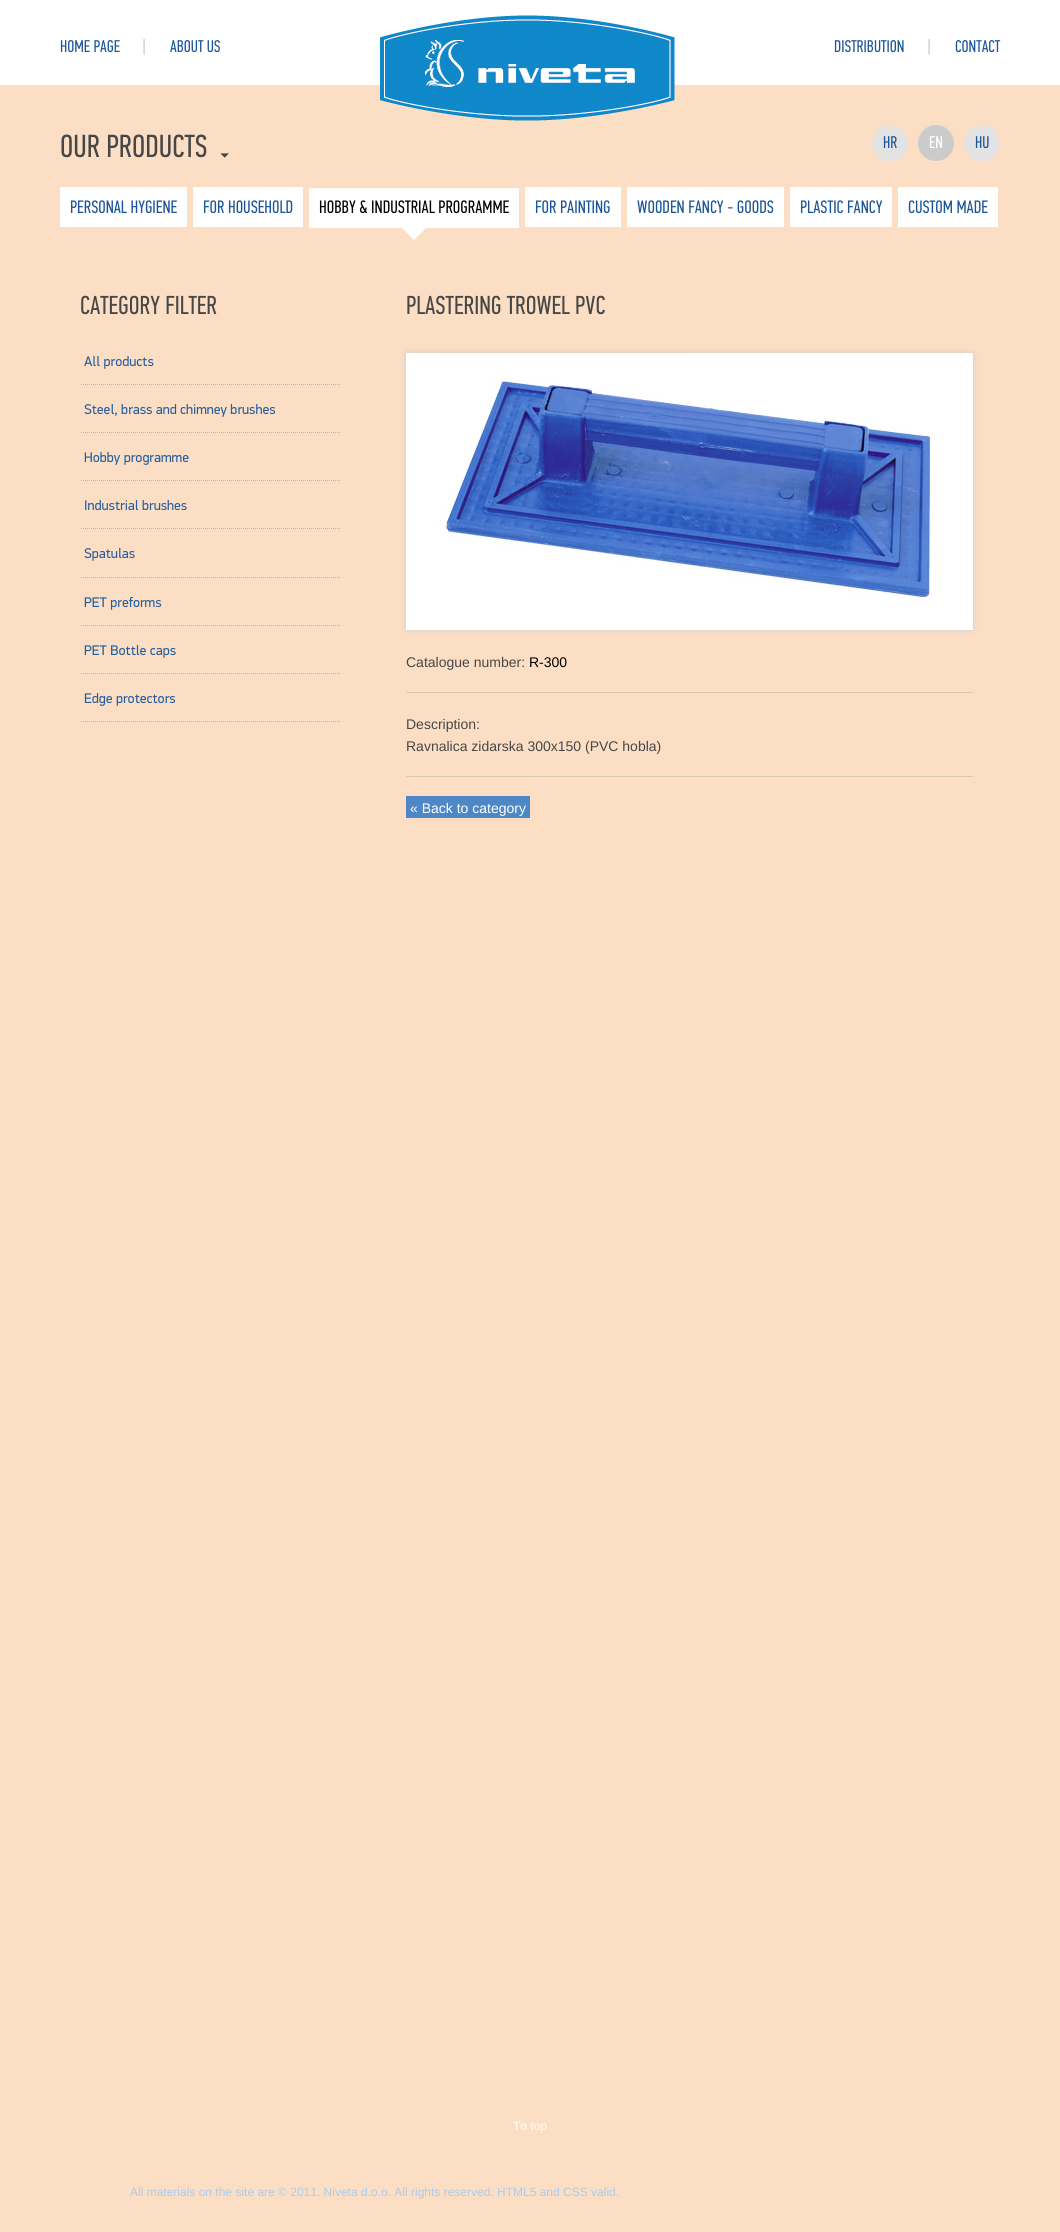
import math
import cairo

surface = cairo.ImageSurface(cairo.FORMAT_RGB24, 1060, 2232)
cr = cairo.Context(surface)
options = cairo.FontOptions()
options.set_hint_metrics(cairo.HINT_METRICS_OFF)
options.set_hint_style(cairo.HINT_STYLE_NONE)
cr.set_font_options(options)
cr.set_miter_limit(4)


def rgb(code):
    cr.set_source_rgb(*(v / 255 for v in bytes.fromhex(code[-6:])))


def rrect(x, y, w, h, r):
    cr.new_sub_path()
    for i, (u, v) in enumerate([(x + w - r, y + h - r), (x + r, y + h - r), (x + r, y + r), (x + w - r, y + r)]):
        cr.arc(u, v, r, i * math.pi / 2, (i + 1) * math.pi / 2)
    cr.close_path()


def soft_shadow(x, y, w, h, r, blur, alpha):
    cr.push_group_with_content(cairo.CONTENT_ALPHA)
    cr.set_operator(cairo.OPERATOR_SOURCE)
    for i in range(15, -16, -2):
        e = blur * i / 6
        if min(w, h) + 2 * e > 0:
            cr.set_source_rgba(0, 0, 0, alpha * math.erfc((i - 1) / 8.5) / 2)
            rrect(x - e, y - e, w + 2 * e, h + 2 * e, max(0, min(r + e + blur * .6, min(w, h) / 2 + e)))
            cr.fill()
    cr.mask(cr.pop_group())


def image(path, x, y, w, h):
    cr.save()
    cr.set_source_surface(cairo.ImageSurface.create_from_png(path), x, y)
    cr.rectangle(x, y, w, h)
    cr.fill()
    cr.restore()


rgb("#fbdec4")
cr.paint()
rgb("#ffffff")
cr.rectangle(0, 0, 1060, 85)
cr.fill()
image("img/1.png", 143, 39, 2, 16)
image("img/2.png", 380, 15, 295, 106)
image("img/1.png", 928, 39, 2, 16)
image("img/3.png", 220, 153, 9, 5)
cr.rectangle(60, 187, 127, 40)
cr.fill()
cr.rectangle(193, 187, 110, 40)
cr.fill()
image("img/4.png", 309, 188, 210, 52)
for x, y, w, h, color in [
    (525, 187, 96, 40, "#ffffff"),
    (627, 187, 157, 40, "#ffffff"),
    (790, 187, 102, 40, "#ffffff"),
    (898, 187, 100, 40, "#ffffff"),
]:
    rgb(color)
    cr.rectangle(x, y, w, h)
    cr.fill()
image("img/5.png", 872, 125, 36, 36)
image("img/6.png", 918, 125, 36, 36)
image("img/5.png", 964, 125, 36, 36)
image("img/7.png", 81, 384, 259, 1)
image("img/7.png", 81, 432, 259, 1)
image("img/7.png", 81, 480, 259, 1)
image("img/7.png", 81, 528, 259, 1)
image("img/7.png", 81, 577, 259, 1)
image("img/7.png", 81, 625, 259, 1)
image("img/7.png", 81, 673, 259, 1)
image("img/7.png", 81, 721, 259, 1)
rgb("#cccccc")
soft_shadow(406, 353, 567, 277, 0, 2.5, 1)
cr.rectangle(406.5, 353.5, 566, 276)
rgb("#ffffff")
cr.set_line_width(1)
cr.stroke()
image("img/8.png", 407, 354, 565, 275)
for x, y, w, h, color in [
    (406, 692, 567, 1, "#dacbae"),
    (406, 776, 567, 1, "#dacbae"),
    (406, 796, 124, 22, "#4e87c6"),
]:
    rgb(color)
    cr.rectangle(x, y, w, h)
    cr.fill()
cr.select_font_face("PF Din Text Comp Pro")
cr.set_font_size(17)
rgb("#1d5696")
for x, y, s in [
    (60, 52, "HOME PAGE"),
    (170, 52, "ABOUT US"),
    (834, 52, "DISTRIBUTION"),
    (955, 52, "CONTACT"),
]:
    cr.move_to(x, y)
    cr.show_text(s)
cr.set_font_size(32)
rgb("#474747")
cr.move_to(60, 157)
cr.show_text("OUR PRODUCTS")
cr.set_font_size(18)
rgb("#1d5696")
cr.move_to(70, 213)
cr.show_text("PERSONAL HYGIENE")
cr.move_to(203, 213)
cr.show_text("FOR HOUSEHOLD")
rgb("#000000")
cr.move_to(319, 213)
cr.show_text("HOBBY & INDUSTRIAL PROGRAMME")
rgb("#1d5696")
for x, y, s in [
    (535, 213, "FOR PAINTING"),
    (637, 213, "WOODEN FANCY - GOODS"),
    (800, 213, "PLASTIC FANCY"),
    (908, 213, "CUSTOM MADE"),
]:
    cr.move_to(x, y)
    cr.show_text(s)
cr.set_font_size(17)
cr.move_to(883, 148)
cr.show_text("HR")
rgb("#ffffff")
cr.move_to(929, 148)
cr.show_text("EN")
rgb("#1d5696")
cr.move_to(975, 148)
cr.show_text("HU")
cr.set_font_size(26)
rgb("#474747")
cr.move_to(80, 314)
cr.show_text("CATEGORY FILTER")
cr.select_font_face("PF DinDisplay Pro")
cr.set_font_size(14)
rgb("#235ea0")
for x, y, s in [
    (84, 366, "All products"),
    (84, 414, "Steel, brass and chimney brushes"),
    (84, 462, "Hobby programme"),
    (84, 510, "Industrial brushes"),
    (84, 558, "Spatulas"),
    (84, 607, "PET preforms"),
    (84, 655, "PET Bottle caps"),
    (84, 703, "Edge protectors"),
]:
    cr.move_to(x, y)
    cr.show_text(s)
cr.select_font_face("PF Din Text Comp Pro")
cr.set_font_size(26)
rgb("#474747")
cr.move_to(406, 314)
cr.show_text("PLASTERING TROWEL PVC")
cr.select_font_face("Liberation Sans")
cr.set_font_size(14)
cr.move_to(406, 667)
cr.show_text("Catalogue number:")
rgb("#000000")
cr.move_to(529, 667)
cr.show_text("R-300")
rgb("#474747")
cr.move_to(406, 729)
cr.show_text("Description:")
cr.move_to(406, 751)
cr.show_text("Ravnalica zidarska 300x150 (PVC hobla)")
rgb("#ffffff")
cr.move_to(410, 813)
cr.show_text("« Back to category")
cr.set_font_size(12)
cr.move_to(513, 2130)
cr.show_text("To top")
rgb("#abcbee")
cr.move_to(130, 2196)
cr.show_text("All materials on the site are © 2011. Niveta d.o.o. All rights reserved. HTML5 and CSS valid.")
surface.write_to_png("page.png")
